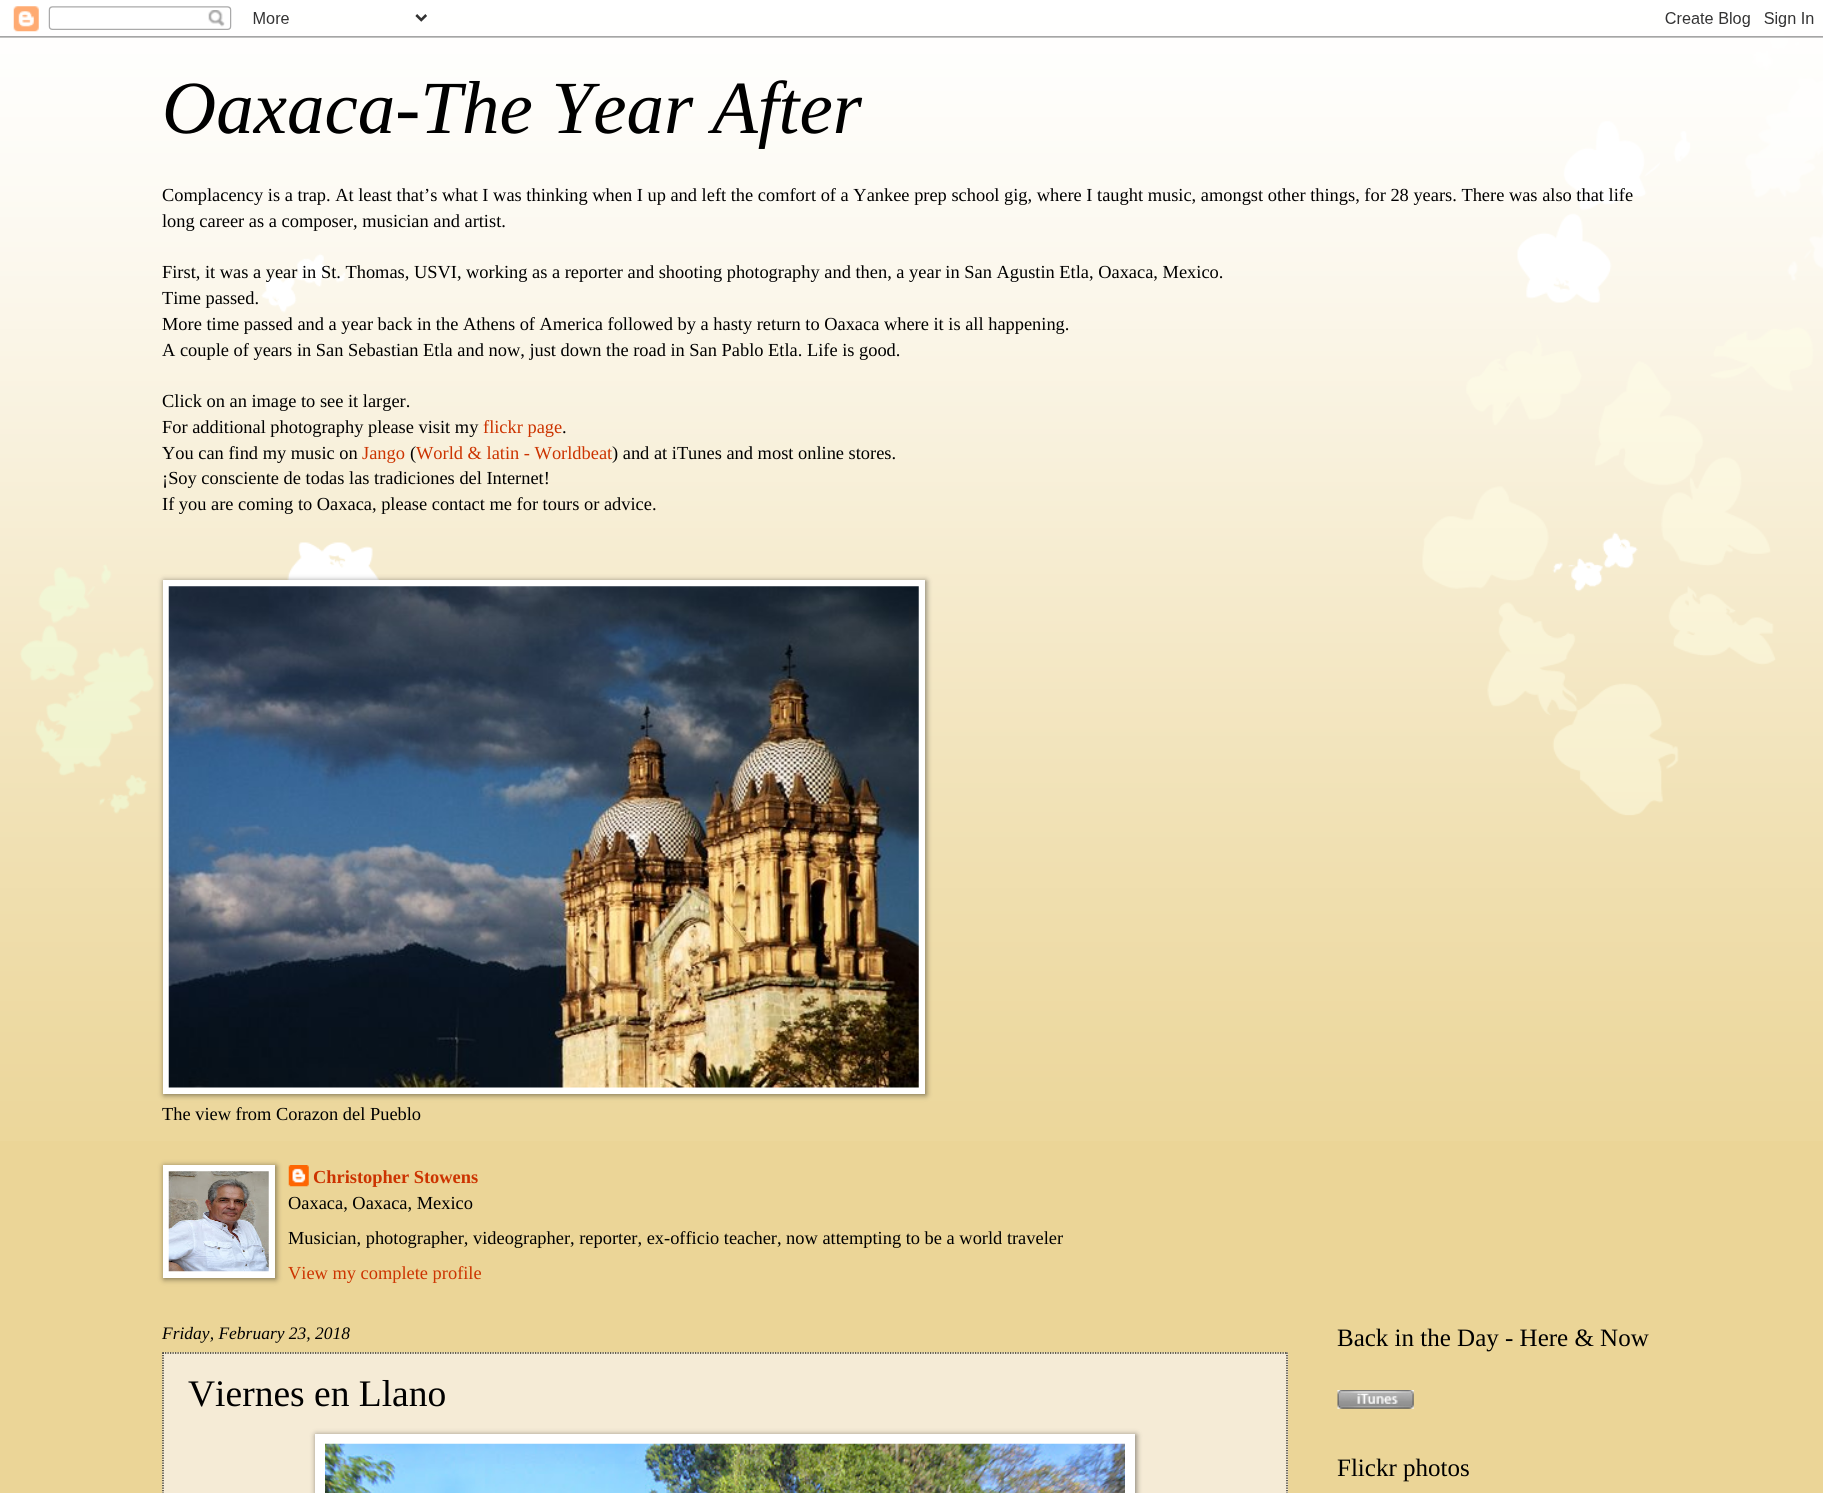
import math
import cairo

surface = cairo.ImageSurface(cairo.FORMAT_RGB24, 1823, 1493)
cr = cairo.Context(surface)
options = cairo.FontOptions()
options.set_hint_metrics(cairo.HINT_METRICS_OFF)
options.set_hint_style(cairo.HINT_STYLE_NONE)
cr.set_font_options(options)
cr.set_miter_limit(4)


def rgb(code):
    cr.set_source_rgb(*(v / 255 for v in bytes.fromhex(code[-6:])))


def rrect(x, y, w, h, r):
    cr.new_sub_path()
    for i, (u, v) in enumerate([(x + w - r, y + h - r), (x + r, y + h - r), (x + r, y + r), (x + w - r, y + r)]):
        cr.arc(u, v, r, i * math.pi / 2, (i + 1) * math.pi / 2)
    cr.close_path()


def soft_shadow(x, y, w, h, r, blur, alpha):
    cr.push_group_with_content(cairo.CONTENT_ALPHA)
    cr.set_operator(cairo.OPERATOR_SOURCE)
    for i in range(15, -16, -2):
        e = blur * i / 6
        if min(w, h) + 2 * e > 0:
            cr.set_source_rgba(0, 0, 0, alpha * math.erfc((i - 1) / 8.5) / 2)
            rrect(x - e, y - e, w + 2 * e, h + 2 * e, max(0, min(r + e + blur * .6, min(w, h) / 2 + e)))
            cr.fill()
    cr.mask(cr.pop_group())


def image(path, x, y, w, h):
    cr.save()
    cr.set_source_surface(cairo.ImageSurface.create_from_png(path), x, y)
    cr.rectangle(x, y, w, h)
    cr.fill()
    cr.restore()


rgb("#ebd597")
cr.paint()
rgb("#f3e6c1")
cr.rectangle(162, 1352, 1126, 141)
cr.fill()
image("img/1.png", 0, 0, 1823, 1141)
image("img/2.png", 0, 6, 1823, 32)
rgb("#000000")
soft_shadow(164, 581, 762, 514, 0, 3, 0.5)
rgb("#ffffff")
cr.rectangle(163, 580, 762, 514)
cr.fill()
image("img/3.png", 168, 586, 751, 502)
rgb("#000000")
soft_shadow(164, 1166, 112, 113, 0, 3, 0.5)
rgb("#ffffff")
cr.rectangle(163, 1165, 112, 113)
cr.fill()
image("img/4.png", 168, 1171, 101, 101)
image("img/5.png", 288, 1165, 21, 22)
rgb("#f5ebd6")
cr.rectangle(163, 1353, 1125, 140)
cr.fill()
cr.new_path()
cr.move_to(162.5, 1353)
cr.line_to(1287.5, 1353)
rgb("#000000")
cr.set_line_width(1.2)
cr.set_dash([1.25, 1.25])
cr.stroke()
cr.new_path()
cr.move_to(1287, 1352.5)
cr.line_to(1287, 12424)
cr.stroke()
cr.new_path()
cr.move_to(163, 1352.5)
cr.line_to(163, 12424)
cr.stroke()
rgb("#000000")
soft_shadow(316, 1435, 820, 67, 0, 3, 0.5)
rgb("#ffffff")
cr.rectangle(315, 1434, 820, 59)
cr.fill()
image("img/6.png", 325, 1443, 800, 50)
image("img/7.png", 1337, 1390, 77, 19)
cr.select_font_face("Liberation Serif", cairo.FONT_SLANT_ITALIC)
cr.set_font_size(75)
rgb("#000000")
cr.move_to(162, 133)
cr.show_text("Oaxaca-The Year After")
cr.select_font_face("Liberation Serif")
cr.set_font_size(18.4)
for x, y, s in [
    (162, 201, "Complacency is a trap. At least that’s what I was thinking when I up and left the comfort of a Yankee prep school gig, where I taught music, amongst other things, for 28 years. There was also that life"),
    (162, 227, "long career as a composer, musician and artist."),
    (162, 278, "First, it was a year in St. Thomas, USVI, working as a reporter and shooting photography and then, a year in San Agustin Etla, Oaxaca, Mexico."),
    (162, 304, "Time passed."),
    (162, 330, "More time passed and a year back in the Athens of America followed by a hasty return to Oaxaca where it is all happening."),
    (162, 356, "A couple of years in San Sebastian Etla and now, just down the road in San Pablo Etla. Life is good."),
    (162, 407, "Click on an image to see it larger."),
    (162, 433, "For additional photography please visit my"),
]:
    cr.move_to(x, y)
    cr.show_text(s)
rgb("#cc3300")
cr.move_to(483, 433)
cr.show_text("flickr page")
rgb("#000000")
cr.move_to(562, 433)
cr.show_text(".")
cr.move_to(162, 459)
cr.show_text("You can find my music on")
rgb("#cc3300")
cr.move_to(362, 459)
cr.show_text("Jango")
rgb("#000000")
cr.move_to(410, 459)
cr.show_text("(")
rgb("#cc3300")
cr.move_to(416, 459)
cr.show_text("World & latin - Worldbeat")
rgb("#000000")
for x, y, s in [
    (612, 459, ") and at iTunes and most online stores."),
    (162, 484, "¡Soy consciente de todas las tradiciones del Internet!"),
    (162, 510, "If you are coming to Oaxaca, please contact me for tours or advice."),
    (162, 1120, "The view from Corazon del Pueblo"),
]:
    cr.move_to(x, y)
    cr.show_text(s)
cr.select_font_face("Liberation Serif", cairo.FONT_SLANT_NORMAL, cairo.FONT_WEIGHT_BOLD)
rgb("#cc3300")
cr.move_to(313, 1183)
cr.show_text("Christopher Stowens")
cr.select_font_face("Liberation Serif")
rgb("#000000")
cr.move_to(288, 1209)
cr.show_text("Oaxaca, Oaxaca, Mexico")
cr.move_to(288, 1244)
cr.show_text("Musician, photographer, videographer, reporter, ex-officio teacher, now attempting to be a world traveler")
rgb("#cc3300")
cr.move_to(288, 1279)
cr.show_text("View my complete profile")
cr.select_font_face("Liberation Serif", cairo.FONT_SLANT_ITALIC)
cr.set_font_size(17.5)
rgb("#000000")
cr.move_to(162, 1339)
cr.show_text("Friday, February 23, 2018")
cr.select_font_face("Liberation Serif")
cr.set_font_size(37.5)
cr.move_to(188, 1406)
cr.show_text("Viernes en Llano")
cr.set_font_size(25)
cr.move_to(1337, 1346)
cr.show_text("Back in the Day - Here & Now")
cr.move_to(1337, 1476)
cr.show_text("Flickr photos")
surface.write_to_png("page.png")
